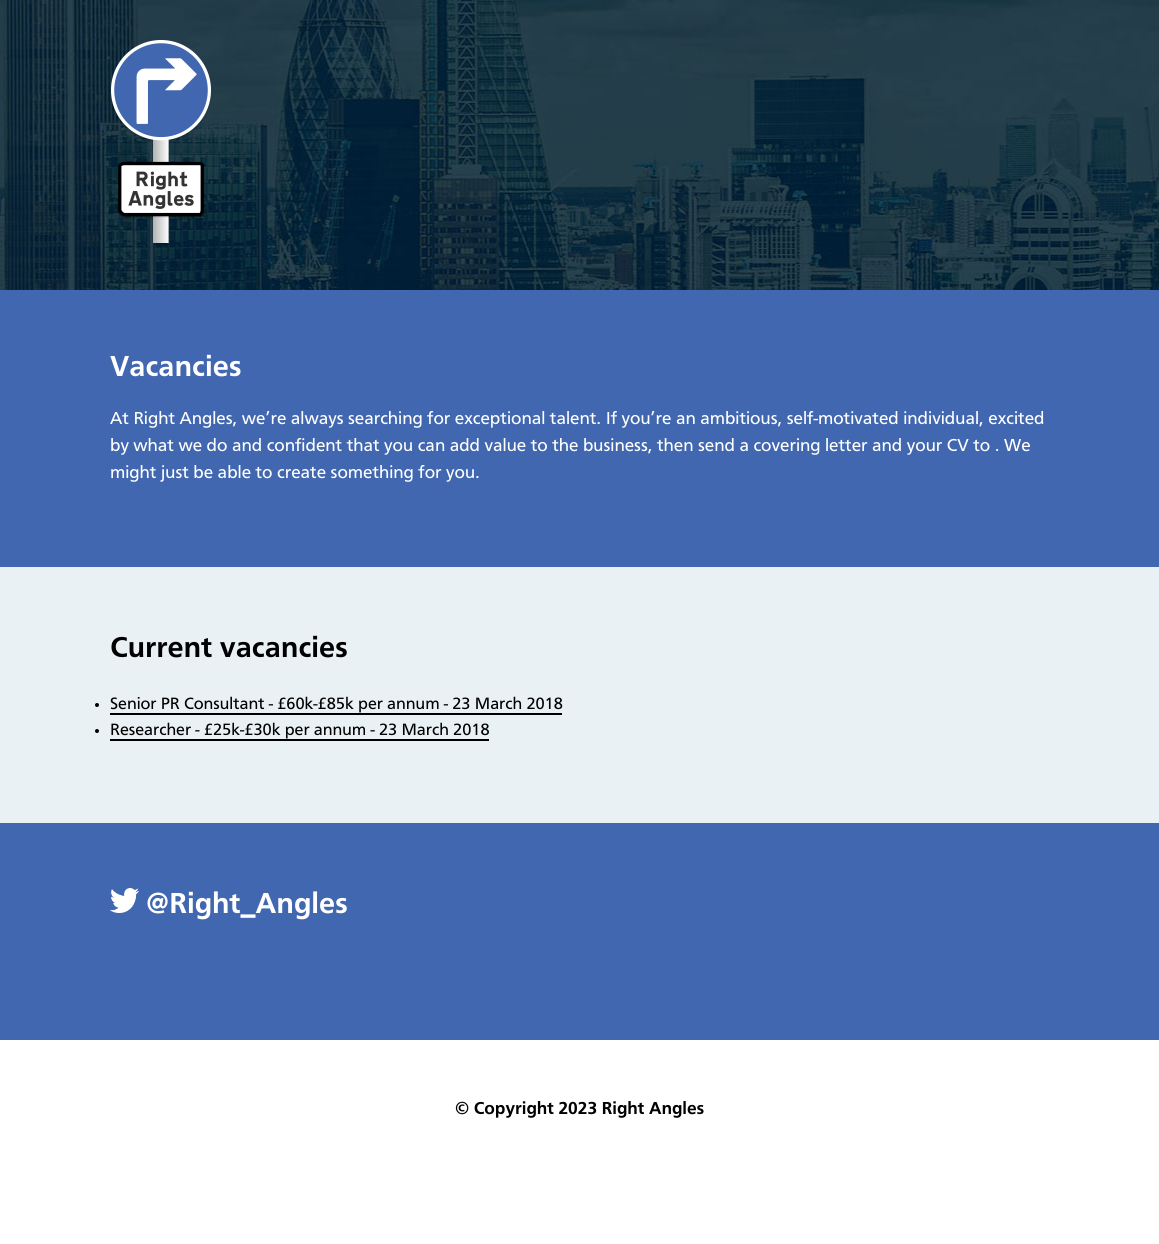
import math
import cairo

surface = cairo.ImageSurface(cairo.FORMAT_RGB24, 1159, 1244)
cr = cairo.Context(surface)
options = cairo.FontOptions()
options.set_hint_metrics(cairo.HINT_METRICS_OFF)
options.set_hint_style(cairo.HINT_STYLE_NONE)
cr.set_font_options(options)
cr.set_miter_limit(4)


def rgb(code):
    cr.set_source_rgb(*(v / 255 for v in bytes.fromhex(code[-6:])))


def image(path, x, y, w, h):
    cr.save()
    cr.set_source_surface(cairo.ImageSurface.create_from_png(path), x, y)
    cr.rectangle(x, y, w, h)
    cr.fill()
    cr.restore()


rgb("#ffffff")
cr.paint()
image("img/1.png", 0, 0, 1159, 290)
image("img/2.png", 111, 40, 100, 205)
rgb("#4167b0")
cr.rectangle(0, 290, 1159, 277)
cr.fill()
rgb("#eaf1f4")
cr.rectangle(0, 567, 1159, 256)
cr.fill()
rgb("#000000")
cr.arc(97, 705, 2, 0, 2 * math.pi)
cr.fill()
cr.rectangle(110, 713, 452, 2)
cr.fill()
cr.arc(97, 731, 2, 0, 2 * math.pi)
cr.fill()
cr.rectangle(110, 739, 379, 2)
cr.fill()
rgb("#4167b0")
cr.rectangle(0, 823, 1159, 217)
cr.fill()
image("img/3.png", 110, 888, 29, 25)
cr.select_font_face("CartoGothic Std", cairo.FONT_SLANT_NORMAL, cairo.FONT_WEIGHT_BOLD)
cr.set_font_size(30)
rgb("#ffffff")
cr.move_to(110, 376)
cr.show_text("Vacancies")
cr.select_font_face("CartoGothic Std")
cr.set_font_size(18)
for x, y, s in [
    (110, 424, "At Right Angles, we’re always searching for exceptional talent. If you’re an ambitious, self-motivated individual, excited"),
    (110, 451, "by what we do and confident that you can add value to the business, then send a covering letter and your CV to . We"),
    (110, 478, "might just be able to create something for you."),
]:
    cr.move_to(x, y)
    cr.show_text(s)
cr.select_font_face("CartoGothic Std", cairo.FONT_SLANT_NORMAL, cairo.FONT_WEIGHT_BOLD)
cr.set_font_size(30)
rgb("#000000")
cr.move_to(110, 657)
cr.show_text("Current vacancies")
cr.select_font_face("CartoGothic Std")
cr.set_font_size(17)
cr.move_to(110, 709)
cr.show_text("Senior PR Consultant - £60k-£85k per annum - 23 March 2018")
cr.move_to(110, 735)
cr.show_text("Researcher - £25k-£30k per annum - 23 March 2018")
cr.select_font_face("CartoGothic Std", cairo.FONT_SLANT_NORMAL, cairo.FONT_WEIGHT_BOLD)
cr.set_font_size(30)
rgb("#ffffff")
cr.move_to(146, 913)
cr.show_text("@Right_Angles")
cr.set_font_size(18)
rgb("#000000")
cr.move_to(455, 1114)
cr.show_text("© Copyright 2023 Right Angles")
surface.write_to_png("page.png")
